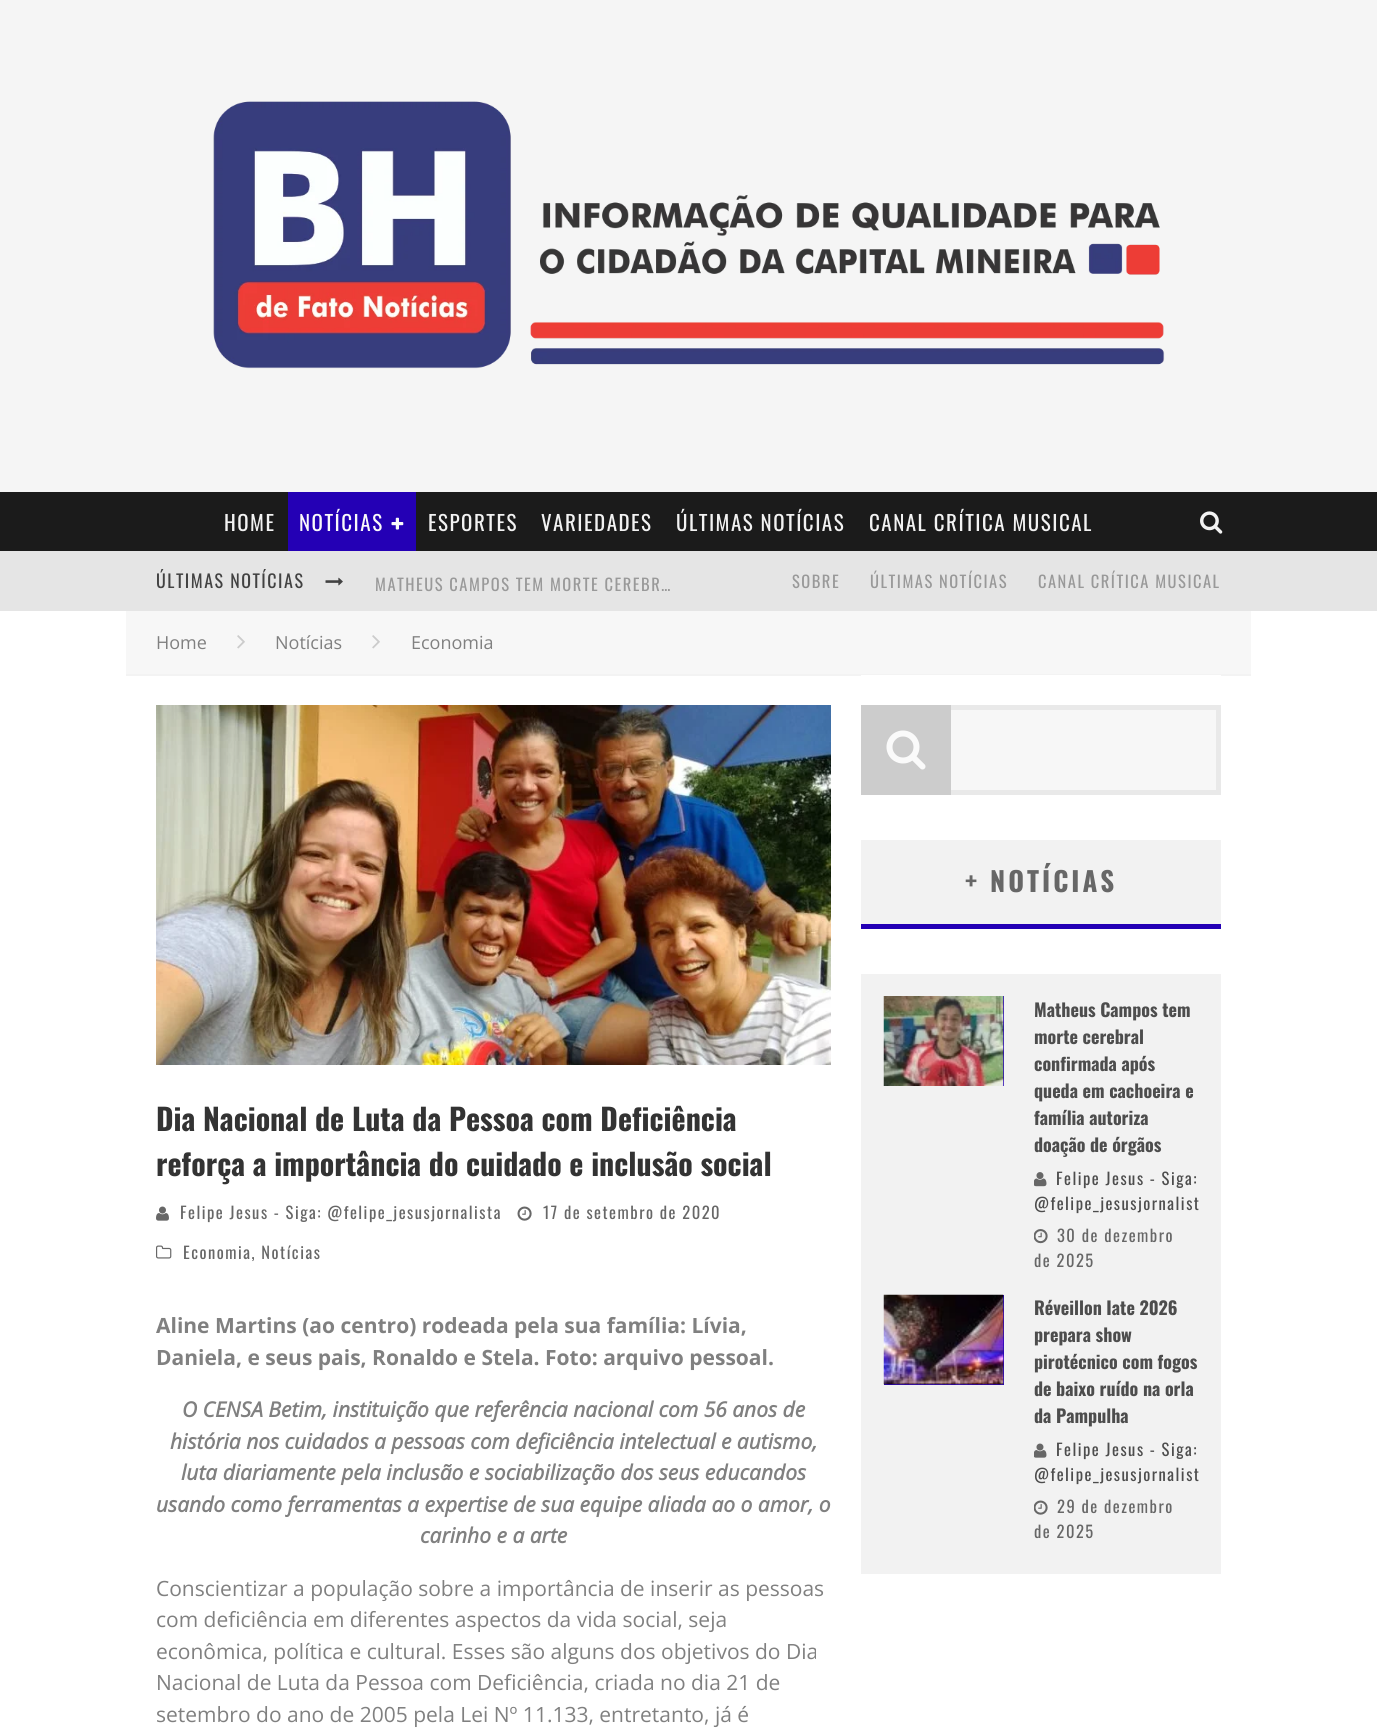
import math
import cairo

surface = cairo.ImageSurface(cairo.FORMAT_RGB24, 1377, 1730)
cr = cairo.Context(surface)
options = cairo.FontOptions()
options.set_hint_metrics(cairo.HINT_METRICS_OFF)
options.set_hint_style(cairo.HINT_STYLE_NONE)
cr.set_font_options(options)
cr.set_miter_limit(4)


def rgb(code):
    cr.set_source_rgb(*(v / 255 for v in bytes.fromhex(code[-6:])))


def tracked(x, y, s, letter, word):
    cr.move_to(x, y)
    for ch in s:
        cr.show_text(ch)
        cr.rel_move_to(letter + word * (ch == ' '), 0)


def image(path, x, y, w, h):
    cr.save()
    cr.set_source_surface(cairo.ImageSurface.create_from_png(path), x, y)
    cr.rectangle(x, y, w, h)
    cr.fill()
    cr.restore()


rgb("#ffffff")
cr.paint()
rgb("#f5f5f5")
cr.rectangle(0, 0, 1377, 492)
cr.fill()
image("img/1.png", 213, 101, 952, 268)
rgb("#1b1b1b")
cr.rectangle(0, 492, 1377, 59)
cr.fill()
rgb("#2400b5")
cr.rectangle(288, 492, 128, 59)
cr.fill()
image("img/2.png", 391, 517, 13, 13)
image("img/3.png", 1200, 511, 23, 23)
rgb("#e5e5e5")
cr.rectangle(0, 551, 1377, 60)
cr.fill()
image("img/4.png", 325, 577, 18, 9)
rgb("#f7f7f7")
cr.rectangle(126, 611, 1125, 63)
cr.fill()
rgb("#f3f3f3")
cr.rectangle(126, 674, 1125, 2)
cr.fill()
image("img/5.png", 237, 635, 8, 14)
image("img/5.png", 372, 635, 8, 14)
image("img/6.png", 156, 705, 675, 360)
image("img/7.png", 156, 1206, 13, 15)
image("img/8.png", 517, 1206, 15, 15)
image("img/9.png", 156, 1245, 16, 14)
rgb("#ffffff")
cr.rectangle(861, 675, 360, 1)
cr.fill()
rgb("#f7f7f7")
cr.rectangle(951, 710, 265, 80)
cr.fill()
cr.rectangle(863.5, 707.5, 355, 85)
rgb("#e9e9e9")
cr.set_line_width(5)
cr.stroke()
rgb("#cccccc")
cr.rectangle(861, 705, 90, 90)
cr.fill()
image("img/10.png", 886, 730, 40, 40)
for x, y, w, h, color in [
    (861, 840, 360, 84, "#f2f2f2"),
    (861, 924, 360, 5, "#2400b5"),
    (861, 974, 360, 600, "#f2f2f2"),
    (1003, 996, 1, 90, "#2400b5"),
]:
    rgb(color)
    cr.rectangle(x, y, w, h)
    cr.fill()
image("img/11.png", 883, 996, 121, 90)
image("img/12.png", 1034, 1172, 13, 15)
image("img/13.png", 1034, 1229, 14, 15)
cr.rectangle(884, 1295, 120, 90)
cr.fill()
image("img/14.png", 883, 1294, 121, 91)
image("img/15.png", 1034, 1443, 13, 15)
image("img/16.png", 1034, 1500, 14, 15)
cr.select_font_face("Oswald")
cr.set_font_size(21)
rgb("#f2f2f2")
tracked(224, 531, "HOME", 1.5, 0)
rgb("#fafafa")
tracked(299, 531, "NOTÍCIAS", 1.5, 0)
rgb("#f2f2f2")
for x, y, s in [
    (428, 531, "ESPORTES"),
    (541, 531, "VARIEDADES"),
    (676, 531, "ÚLTIMAS NOTÍCIAS"),
    (869, 531, "CANAL CRÍTICA MUSICAL"),
]:
    tracked(x, y, s, 1.5, 0)
cr.set_font_size(18)
rgb("#424242")
tracked(156, 588, "ÚLTIMAS NOTÍCIAS", 1.5, 0)
cr.set_font_size(16.5)
rgb("#999999")
for x, y, s in [
    (375, 591, "MATHEUS CAMPOS TEM MORTE CEREBR…"),
    (792, 588, "SOBRE"),
    (870, 588, "ÚLTIMAS NOTÍCIAS"),
    (1038, 588, "CANAL CRÍTICA MUSICAL"),
]:
    tracked(x, y, s, 1.5, 0)
cr.select_font_face("Open Sans")
cr.set_font_size(18)
rgb("#808080")
for x, y, s in [
    (156, 649, "Home"),
    (275, 649, "Notícias"),
    (411, 649, "Economia"),
]:
    cr.move_to(x, y)
    cr.show_text(s)
cr.select_font_face("Oswald", cairo.FONT_SLANT_NORMAL, cairo.FONT_WEIGHT_BOLD)
cr.set_font_size(30)
rgb("#333333")
cr.move_to(156, 1131)
cr.show_text("Dia Nacional de Luta da Pessoa com Deficiência")
cr.move_to(156, 1176)
cr.show_text("reforça a importância do cuidado e inclusão social")
cr.select_font_face("Oswald")
cr.set_font_size(16.5)
rgb("#676767")
for x, y, s in [
    (180, 1219, "Felipe Jesus - Siga: @felipe_jesusjornalista"),
    (543, 1219, "17 de setembro de 2020"),
    (183, 1259, "Economia, Notícias"),
]:
    tracked(x, y, s, 1.5, 0)
cr.select_font_face("Open Sans", cairo.FONT_SLANT_NORMAL, cairo.FONT_WEIGHT_BOLD)
cr.set_font_size(21)
rgb("#808080")
cr.move_to(156, 1333)
cr.show_text("Aline Martins (ao centro) rodeada pela sua família: Lívia,")
cr.move_to(156, 1365)
cr.show_text("Daniela, e seus pais, Ronaldo e Stela. Foto: arquivo pessoal.")
cr.select_font_face("Open Sans", cairo.FONT_SLANT_ITALIC, cairo.FONT_WEIGHT_BOLD)
for x, y, s in [
    (182, 1417, "O CENSA Betim, instituição que referência nacional com 56 anos de"),
    (170, 1449, "história nos cuidados a pessoas com deficiência intelectual e autismo,"),
    (181, 1480, "luta diariamente pela inclusão e sociabilização dos seus educandos"),
    (156, 1512, "usando como ferramentas a expertise de sua equipe aliada ao o amor, o"),
    (420, 1543, "carinho e a arte"),
]:
    cr.move_to(x, y)
    cr.show_text(s)
cr.select_font_face("Open Sans")
for x, y, s in [
    (156, 1596, "Conscientizar a população sobre a importância de inserir as pessoas"),
    (156, 1627, "com deficiência em diferentes aspectos da vida social, seja"),
    (156, 1659, "econômica, política e cultural. Esses são alguns dos objetivos do Dia"),
    (156, 1690, "Nacional de Luta da Pessoa com Deficiência, criada no dia 21 de"),
    (156, 1722, "setembro do ano de 2005 pela Lei Nº 11.133, entretanto, já é"),
]:
    cr.move_to(x, y)
    cr.show_text(s)
cr.select_font_face("Oswald", cairo.FONT_SLANT_NORMAL, cairo.FONT_WEIGHT_BOLD)
cr.set_font_size(27)
rgb("#676767")
tracked(965, 892, "+ NOTÍCIAS", 3, 0)
cr.set_font_size(18)
rgb("#4d4d4d")
for x, y, s in [
    (1034, 1017, "Matheus Campos tem"),
    (1034, 1044, "morte cerebral"),
    (1034, 1071, "confirmada após"),
    (1034, 1098, "queda em cachoeira e"),
]:
    cr.move_to(x, y)
    cr.show_text(s)
cr.save()
cr.rectangle(1034, 996, 165, 284)
cr.clip()
cr.move_to(1034, 1125)
cr.show_text("família autoriza")
cr.restore()
cr.move_to(1034, 1152)
cr.show_text("doação de órgãos")
cr.select_font_face("Oswald")
cr.set_font_size(16.5)
tracked(1056, 1185, "Felipe Jesus - Siga:", 1.5, 0)
tracked(1034, 1210, "@felipe_jesusjornalist", 1.5, 0)
rgb("#676767")
tracked(1057, 1242, "30 de dezembro", 1.5, 0)
tracked(1034, 1267, "de 2025", 1.5, 0)
cr.select_font_face("Oswald", cairo.FONT_SLANT_NORMAL, cairo.FONT_WEIGHT_BOLD)
cr.set_font_size(18)
rgb("#4d4d4d")
for x, y, s in [
    (1034, 1315, "Réveillon Iate 2026"),
    (1034, 1342, "prepara show"),
    (1034, 1369, "pirotécnico com fogos"),
    (1034, 1396, "de baixo ruído na orla"),
    (1034, 1423, "da Pampulha"),
]:
    cr.move_to(x, y)
    cr.show_text(s)
cr.select_font_face("Oswald")
cr.set_font_size(16.5)
tracked(1056, 1456, "Felipe Jesus - Siga:", 1.5, 0)
tracked(1034, 1481, "@felipe_jesusjornalist", 1.5, 0)
rgb("#676767")
tracked(1057, 1513, "29 de dezembro", 1.5, 0)
tracked(1034, 1538, "de 2025", 1.5, 0)
surface.write_to_png("page.png")
